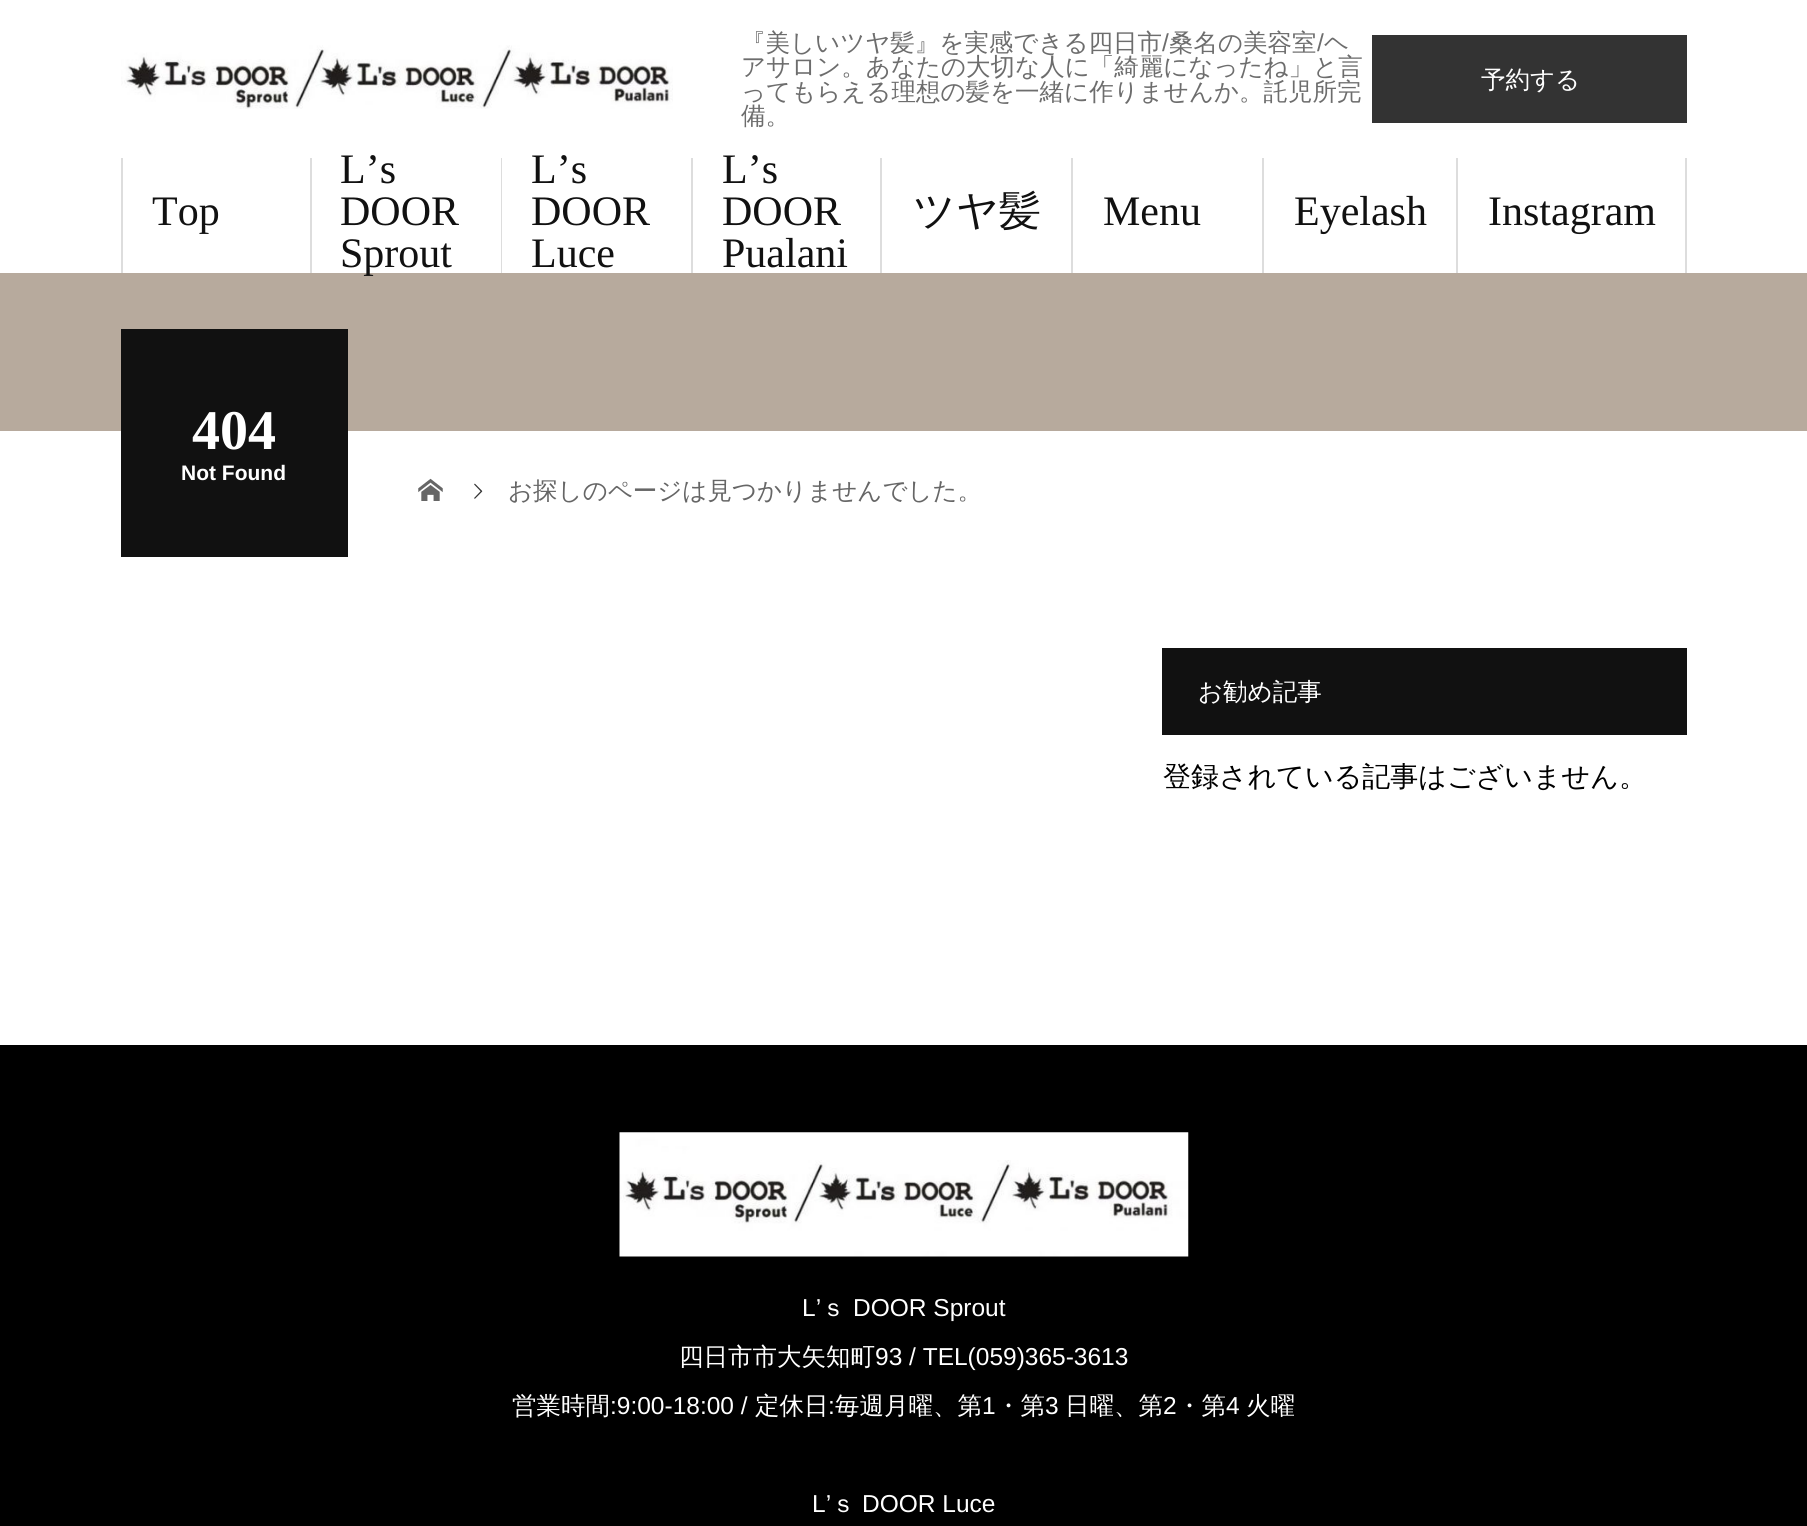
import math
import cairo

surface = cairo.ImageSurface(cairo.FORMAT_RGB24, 1807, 1526)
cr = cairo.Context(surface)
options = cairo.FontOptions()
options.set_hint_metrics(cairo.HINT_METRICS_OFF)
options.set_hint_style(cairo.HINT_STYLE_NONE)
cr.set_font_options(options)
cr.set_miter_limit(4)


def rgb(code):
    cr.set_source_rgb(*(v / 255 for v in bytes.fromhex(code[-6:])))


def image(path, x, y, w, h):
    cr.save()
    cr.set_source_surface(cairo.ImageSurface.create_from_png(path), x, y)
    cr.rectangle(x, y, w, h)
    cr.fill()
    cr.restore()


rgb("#ffffff")
cr.paint()
image("img/1.png", 121, 45, 552, 64)
for x, y, w, h, color in [
    (1372, 35, 315, 88, "#333333"),
    (310, 158, 2, 115, "#dddddd"),
    (121, 158, 2, 115, "#dddddd"),
    (501, 158, 1, 115, "#dddddd"),
    (691, 158, 2, 115, "#dddddd"),
    (880, 158, 2, 115, "#dddddd"),
    (1071, 158, 2, 115, "#dddddd"),
    (1262, 158, 2, 115, "#dddddd"),
    (1456, 158, 2, 115, "#dddddd"),
    (1685, 158, 2, 115, "#dddddd"),
    (0, 273, 1807, 158, "#b7aa9d"),
    (121, 329, 227, 228, "#111111"),
]:
    rgb(color)
    cr.rectangle(x, y, w, h)
    cr.fill()
image("img/2.png", 418, 478, 25, 23)
image("img/3.png", 474, 483, 9, 16)
cr.rectangle(1162, 648, 525, 87)
cr.fill()
rgb("#000000")
cr.rectangle(0, 1045, 1807, 481)
cr.fill()
image("img/4.png", 619, 1132, 570, 125)
cr.select_font_face("WenQuanYi Zen Hei Medium")
cr.set_font_size(24.5)
rgb("#6d6d6d")
cr.move_to(741, 51)
cr.show_text("『美しいツヤ髪』を実感できる四日市")
cr.select_font_face("Liberation Sans")
cr.move_to(1162, 51)
cr.show_text("/")
cr.select_font_face("WenQuanYi Zen Hei Medium")
cr.move_to(1169, 51)
cr.show_text("桑名の美容室")
cr.select_font_face("Liberation Sans")
cr.move_to(1317, 51)
cr.show_text("/")
cr.select_font_face("WenQuanYi Zen Hei Medium")
for x, y, s in [
    (1324, 51, "ヘ"),
    (741, 75, "アサロン。あなたの大切な人に「綺麗になったね」と言"),
    (741, 100, "ってもらえる理想の髪を一緒に作りませんか。託児所完"),
    (741, 124, "備。"),
]:
    cr.move_to(x, y)
    cr.show_text(s)
rgb("#ffffff")
cr.move_to(1481, 88)
cr.show_text("予約する")
cr.select_font_face("Liberation Serif")
cr.set_font_size(42)
rgb("#111111")
for x, y, s in [
    (152, 225, "Top"),
    (340, 183, "L’s"),
    (340, 225, "DOOR"),
    (340, 267, "Sprout"),
    (531, 183, "L’s"),
    (531, 225, "DOOR"),
    (531, 267, "Luce"),
    (722, 183, "L’s"),
    (722, 225, "DOOR"),
    (722, 267, "Pualani"),
]:
    cr.move_to(x, y)
    cr.show_text(s)
cr.select_font_face("WenQuanYi Zen Hei Medium")
cr.move_to(913, 225)
cr.show_text("ツヤ髪")
cr.select_font_face("Liberation Serif")
for x, y, s in [
    (1103, 225, "Menu"),
    (1294, 225, "Eyelash"),
    (1488, 225, "Instagram"),
]:
    cr.move_to(x, y)
    cr.show_text(s)
cr.select_font_face("Liberation Serif", cairo.FONT_SLANT_NORMAL, cairo.FONT_WEIGHT_BOLD)
cr.set_font_size(56)
rgb("#ffffff")
cr.move_to(192, 449)
cr.show_text("404")
cr.select_font_face("Liberation Sans", cairo.FONT_SLANT_NORMAL, cairo.FONT_WEIGHT_BOLD)
cr.set_font_size(21)
cr.move_to(181, 480)
cr.show_text("Not Found")
cr.select_font_face("WenQuanYi Zen Hei Medium")
cr.set_font_size(24.5)
rgb("#666666")
cr.move_to(508, 499)
cr.show_text("お探しのページは見つかりませんでした。")
rgb("#ffffff")
cr.move_to(1198, 700)
cr.show_text("お勧め記事")
cr.set_font_size(28)
rgb("#000000")
cr.move_to(1163, 786)
cr.show_text("登録されている記事はございません。")
cr.select_font_face("Liberation Sans")
cr.set_font_size(24.5)
rgb("#ffffff")
cr.move_to(802, 1316)
cr.show_text("L’")
cr.select_font_face("WenQuanYi Zen Hei Medium")
cr.move_to(821, 1316)
cr.show_text("ｓ")
cr.select_font_face("Liberation Sans")
cr.move_to(853, 1316)
cr.show_text("DOOR Sprout")
cr.select_font_face("WenQuanYi Zen Hei Medium")
cr.move_to(679, 1365)
cr.show_text("四日市市大矢知町")
cr.select_font_face("Liberation Sans")
cr.move_to(875, 1365)
cr.show_text("93 / TEL(059)365-3613")
cr.select_font_face("WenQuanYi Zen Hei Medium")
cr.move_to(512, 1414)
cr.show_text("営業時間")
cr.select_font_face("Liberation Sans")
cr.move_to(610, 1414)
cr.show_text(":9:00-18:00 /")
cr.select_font_face("WenQuanYi Zen Hei Medium")
cr.move_to(755, 1414)
cr.show_text("定休日")
cr.select_font_face("Liberation Sans")
cr.move_to(828, 1414)
cr.show_text(":")
cr.select_font_face("WenQuanYi Zen Hei Medium")
cr.move_to(835, 1414)
cr.show_text("毎週月曜、第")
cr.select_font_face("Liberation Sans")
cr.move_to(982, 1414)
cr.show_text("1")
cr.select_font_face("WenQuanYi Zen Hei Medium")
cr.move_to(996, 1414)
cr.show_text("・第")
cr.select_font_face("Liberation Sans")
cr.move_to(1045, 1414)
cr.show_text("3")
cr.select_font_face("WenQuanYi Zen Hei Medium")
cr.move_to(1065, 1414)
cr.show_text("日曜、第")
cr.select_font_face("Liberation Sans")
cr.move_to(1163, 1414)
cr.show_text("2")
cr.select_font_face("WenQuanYi Zen Hei Medium")
cr.move_to(1177, 1414)
cr.show_text("・第")
cr.select_font_face("Liberation Sans")
cr.move_to(1226, 1414)
cr.show_text("4")
cr.select_font_face("WenQuanYi Zen Hei Medium")
cr.move_to(1246, 1414)
cr.show_text("火曜")
cr.select_font_face("Liberation Sans")
cr.move_to(812, 1512)
cr.show_text("L’")
cr.select_font_face("WenQuanYi Zen Hei Medium")
cr.move_to(831, 1512)
cr.show_text("ｓ")
cr.select_font_face("Liberation Sans")
cr.move_to(862, 1512)
cr.show_text("DOOR Luce")
surface.write_to_png("page.png")
